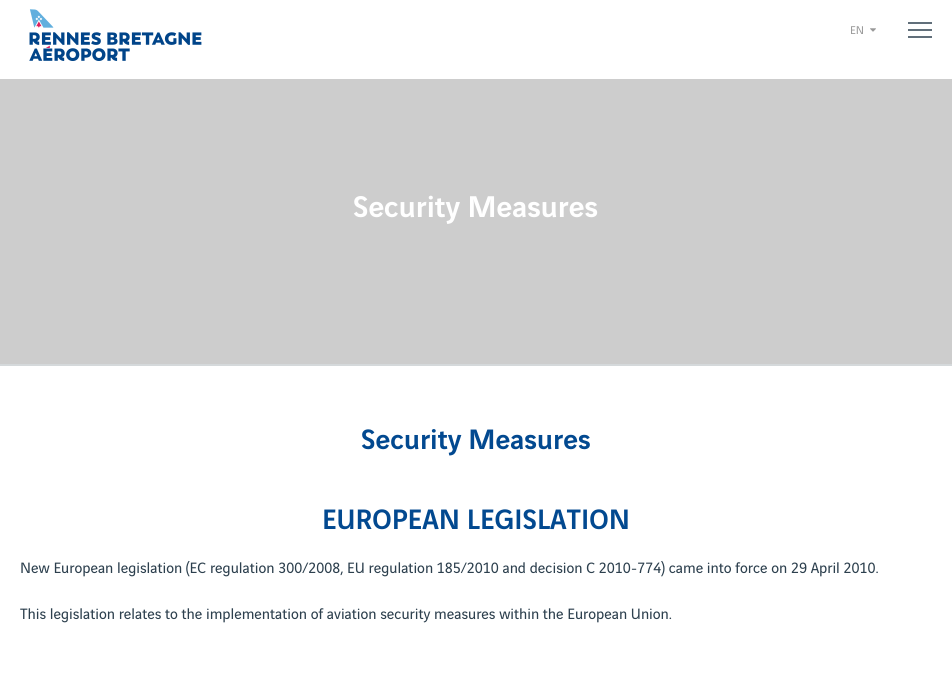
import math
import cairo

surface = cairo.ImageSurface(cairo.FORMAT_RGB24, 952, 674)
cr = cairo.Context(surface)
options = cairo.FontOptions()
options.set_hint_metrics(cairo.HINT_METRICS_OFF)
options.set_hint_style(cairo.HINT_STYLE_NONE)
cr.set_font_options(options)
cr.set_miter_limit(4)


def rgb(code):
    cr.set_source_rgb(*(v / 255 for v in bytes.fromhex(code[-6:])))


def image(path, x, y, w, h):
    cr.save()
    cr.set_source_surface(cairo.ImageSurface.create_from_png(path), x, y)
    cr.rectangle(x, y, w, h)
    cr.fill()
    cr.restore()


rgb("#ffffff")
cr.paint()
image("img/1.png", 29, 9, 173, 52)
image("img/2.png", 870, 28, 6, 4)
image("img/3.png", 908, 22, 24, 16)
rgb("#cdcdcd")
cr.rectangle(0, 79, 952, 285)
cr.fill()
rgb("#d5d9db")
cr.rectangle(0, 364, 952, 2)
cr.fill()
cr.select_font_face("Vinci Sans")
cr.set_font_size(12)
rgb("#999999")
cr.move_to(850, 34)
cr.show_text("EN")
cr.select_font_face("Vinci Sans Medium")
cr.set_font_size(32)
rgb("#ffffff")
cr.move_to(353, 217)
cr.show_text("Security Measures")
cr.set_font_size(30)
rgb("#024990")
cr.move_to(361, 449)
cr.show_text("Security Measures")
cr.move_to(322, 529)
cr.show_text("EUROPEAN LEGISLATION")
cr.select_font_face("Vinci Sans")
cr.set_font_size(16)
rgb("#2d404e")
cr.move_to(20, 573)
cr.show_text("New European legislation (EC regulation 300/2008, EU regulation 185/2010 and decision C 2010-774) came into force on 29 April 2010.")
cr.move_to(20, 619)
cr.show_text("This legislation relates to the implementation of aviation security measures within the European Union.")
surface.write_to_png("page.png")
